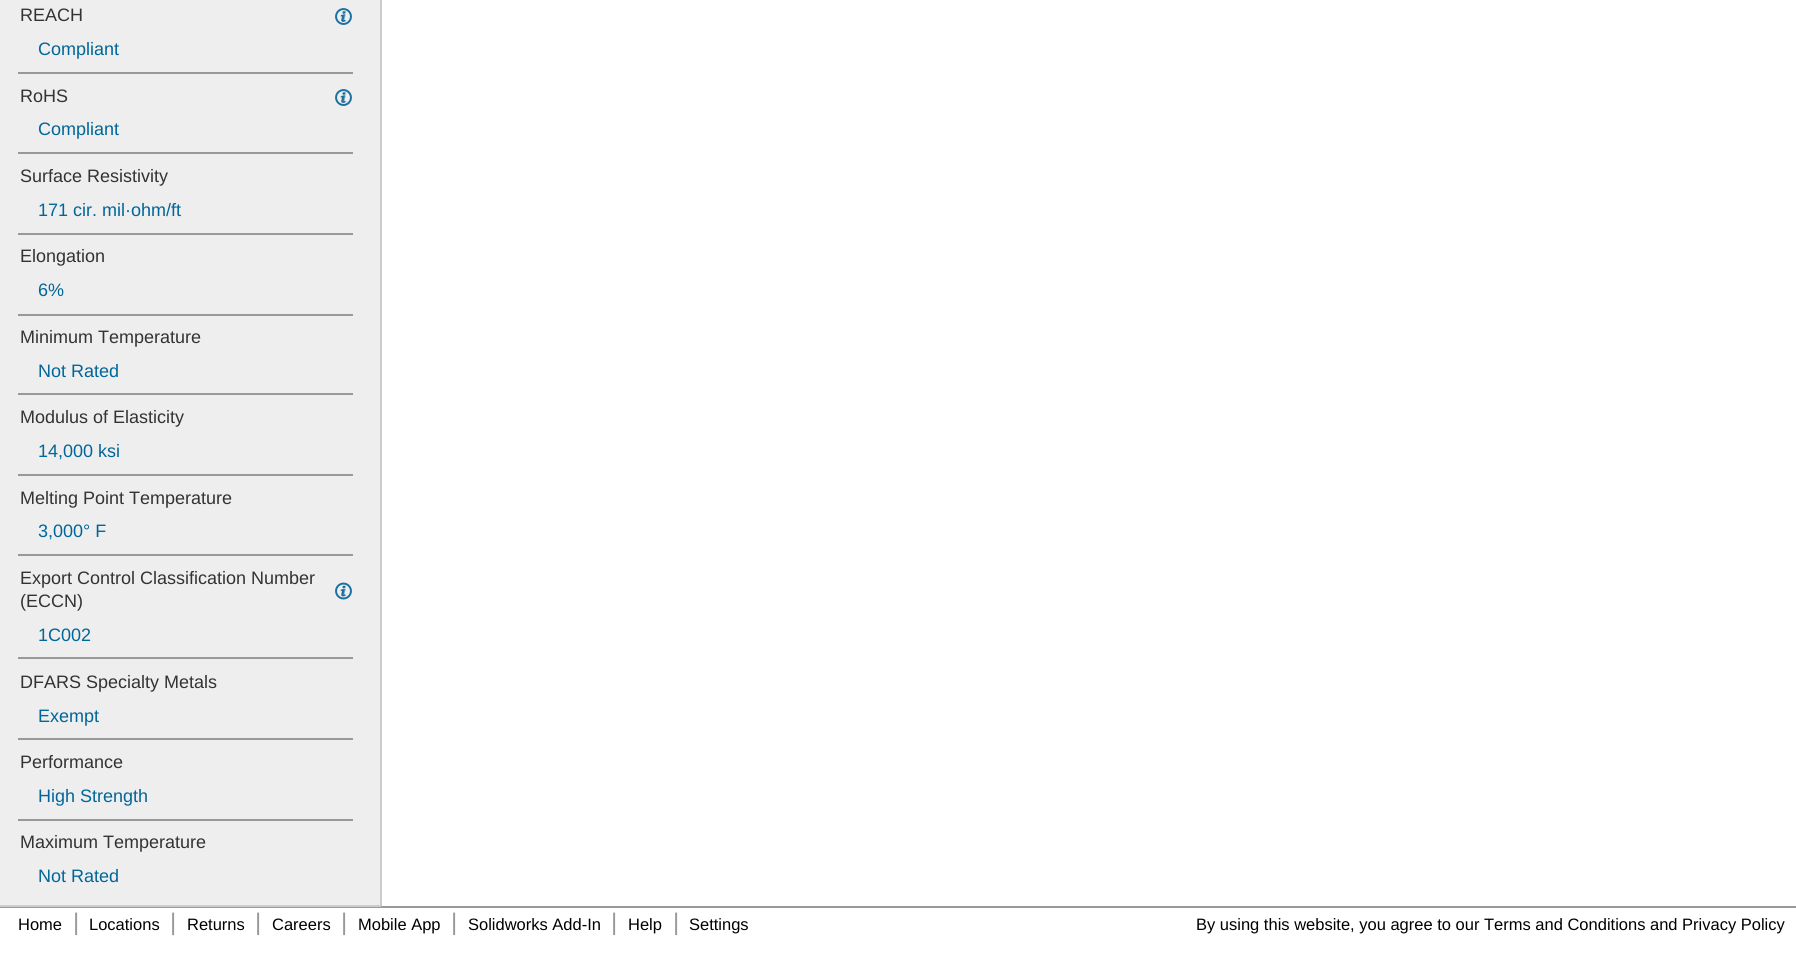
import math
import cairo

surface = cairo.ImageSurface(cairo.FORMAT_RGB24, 1796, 964)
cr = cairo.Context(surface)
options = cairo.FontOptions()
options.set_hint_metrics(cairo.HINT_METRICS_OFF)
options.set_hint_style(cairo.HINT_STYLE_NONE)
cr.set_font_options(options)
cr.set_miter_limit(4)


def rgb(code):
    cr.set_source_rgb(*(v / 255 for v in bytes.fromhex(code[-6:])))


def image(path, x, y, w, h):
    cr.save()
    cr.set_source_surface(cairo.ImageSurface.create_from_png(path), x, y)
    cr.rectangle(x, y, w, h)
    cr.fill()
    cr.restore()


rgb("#ffffff")
cr.paint()
for x, y, w, h, color in [
    (0, 0, 380, 905, "#eeeeee"),
    (380, 0, 2, 906, "#cccccc"),
    (0, 906, 1796, 2, "#999999"),
    (0, 905, 381, 2, "#cccccc"),
]:
    rgb(color)
    cr.rectangle(x, y, w, h)
    cr.fill()
image("img/1.png", 335, 8, 17, 17)
rgb("#999999")
cr.rectangle(18, 72, 335, 2)
cr.fill()
image("img/1.png", 335, 89, 17, 17)
for x, y, w, h, color in [
    (18, 152, 335, 2, "#999999"),
    (18, 233, 335, 2, "#999999"),
    (18, 314, 335, 2, "#999999"),
    (18, 393, 335, 2, "#999999"),
    (18, 474, 335, 2, "#999999"),
    (18, 554, 335, 2, "#999999"),
]:
    rgb(color)
    cr.rectangle(x, y, w, h)
    cr.fill()
image("img/2.png", 335, 582, 17, 18)
for x, y, w, h, color in [
    (18, 657, 335, 2, "#999999"),
    (18, 738, 335, 2, "#999999"),
    (18, 819, 335, 2, "#999999"),
]:
    rgb(color)
    cr.rectangle(x, y, w, h)
    cr.fill()
cr.select_font_face("Liberation Sans")
cr.set_font_size(18)
rgb("#333333")
cr.move_to(20, 21)
cr.show_text("REACH")
rgb("#006699")
cr.move_to(38, 55)
cr.show_text("Compliant")
rgb("#333333")
cr.move_to(20, 102)
cr.show_text("RoHS")
rgb("#006699")
cr.move_to(38, 135)
cr.show_text("Compliant")
rgb("#333333")
cr.move_to(20, 182)
cr.show_text("Surface Resistivity")
rgb("#006699")
cr.move_to(38, 216)
cr.show_text("171 cir. mil·ohm/ft")
rgb("#333333")
cr.move_to(20, 262)
cr.show_text("Elongation")
rgb("#006699")
cr.move_to(38, 296)
cr.show_text("6%")
rgb("#333333")
cr.move_to(20, 343)
cr.show_text("Minimum Temperature")
rgb("#006699")
cr.move_to(38, 377)
cr.show_text("Not Rated")
rgb("#333333")
cr.move_to(20, 423)
cr.show_text("Modulus of Elasticity")
rgb("#006699")
cr.move_to(38, 457)
cr.show_text("14,000 ksi")
rgb("#333333")
cr.move_to(20, 504)
cr.show_text("Melting Point Temperature")
rgb("#006699")
cr.move_to(38, 537)
cr.show_text("3,000° F")
rgb("#333333")
cr.move_to(20, 584)
cr.show_text("Export Control Classification Number")
cr.move_to(20, 607)
cr.show_text("(ECCN)")
rgb("#006699")
cr.move_to(38, 641)
cr.show_text("1C002")
rgb("#333333")
cr.move_to(20, 688)
cr.show_text("DFARS Specialty Metals")
rgb("#006699")
cr.move_to(38, 722)
cr.show_text("Exempt")
rgb("#333333")
cr.move_to(20, 768)
cr.show_text("Performance")
rgb("#006699")
cr.move_to(38, 802)
cr.show_text("High Strength")
rgb("#333333")
cr.move_to(20, 848)
cr.show_text("Maximum Temperature")
rgb("#006699")
cr.move_to(38, 882)
cr.show_text("Not Rated")
cr.set_font_size(16.5)
rgb("#000000")
cr.move_to(18, 930)
cr.show_text("Home")
cr.set_font_size(24)
rgb("#999999")
cr.move_to(73, 930)
cr.show_text("|")
cr.set_font_size(16.5)
rgb("#000000")
cr.move_to(89, 930)
cr.show_text("Locations")
cr.set_font_size(24)
rgb("#999999")
cr.move_to(170, 930)
cr.show_text("|")
cr.set_font_size(16.5)
rgb("#000000")
cr.move_to(187, 930)
cr.show_text("Returns")
cr.set_font_size(24)
rgb("#999999")
cr.move_to(255, 930)
cr.show_text("|")
cr.set_font_size(16.5)
rgb("#000000")
cr.move_to(272, 930)
cr.show_text("Careers")
cr.set_font_size(24)
rgb("#999999")
cr.move_to(341, 930)
cr.show_text("|")
cr.set_font_size(16.5)
rgb("#000000")
cr.move_to(358, 930)
cr.show_text("Mobile App")
cr.set_font_size(24)
rgb("#999999")
cr.move_to(451, 930)
cr.show_text("|")
cr.set_font_size(16.5)
rgb("#000000")
cr.move_to(468, 930)
cr.show_text("Solidworks Add-In")
cr.set_font_size(24)
rgb("#999999")
cr.move_to(611, 930)
cr.show_text("|")
cr.set_font_size(16.5)
rgb("#000000")
cr.move_to(628, 930)
cr.show_text("Help")
cr.set_font_size(24)
rgb("#999999")
cr.move_to(673, 930)
cr.show_text("|")
cr.set_font_size(16.5)
rgb("#000000")
cr.move_to(689, 930)
cr.show_text("Settings")
cr.move_to(1196, 930)
cr.show_text("By using this website, you agree to our Terms and Conditions and Privacy Policy")
surface.write_to_png("page.png")
